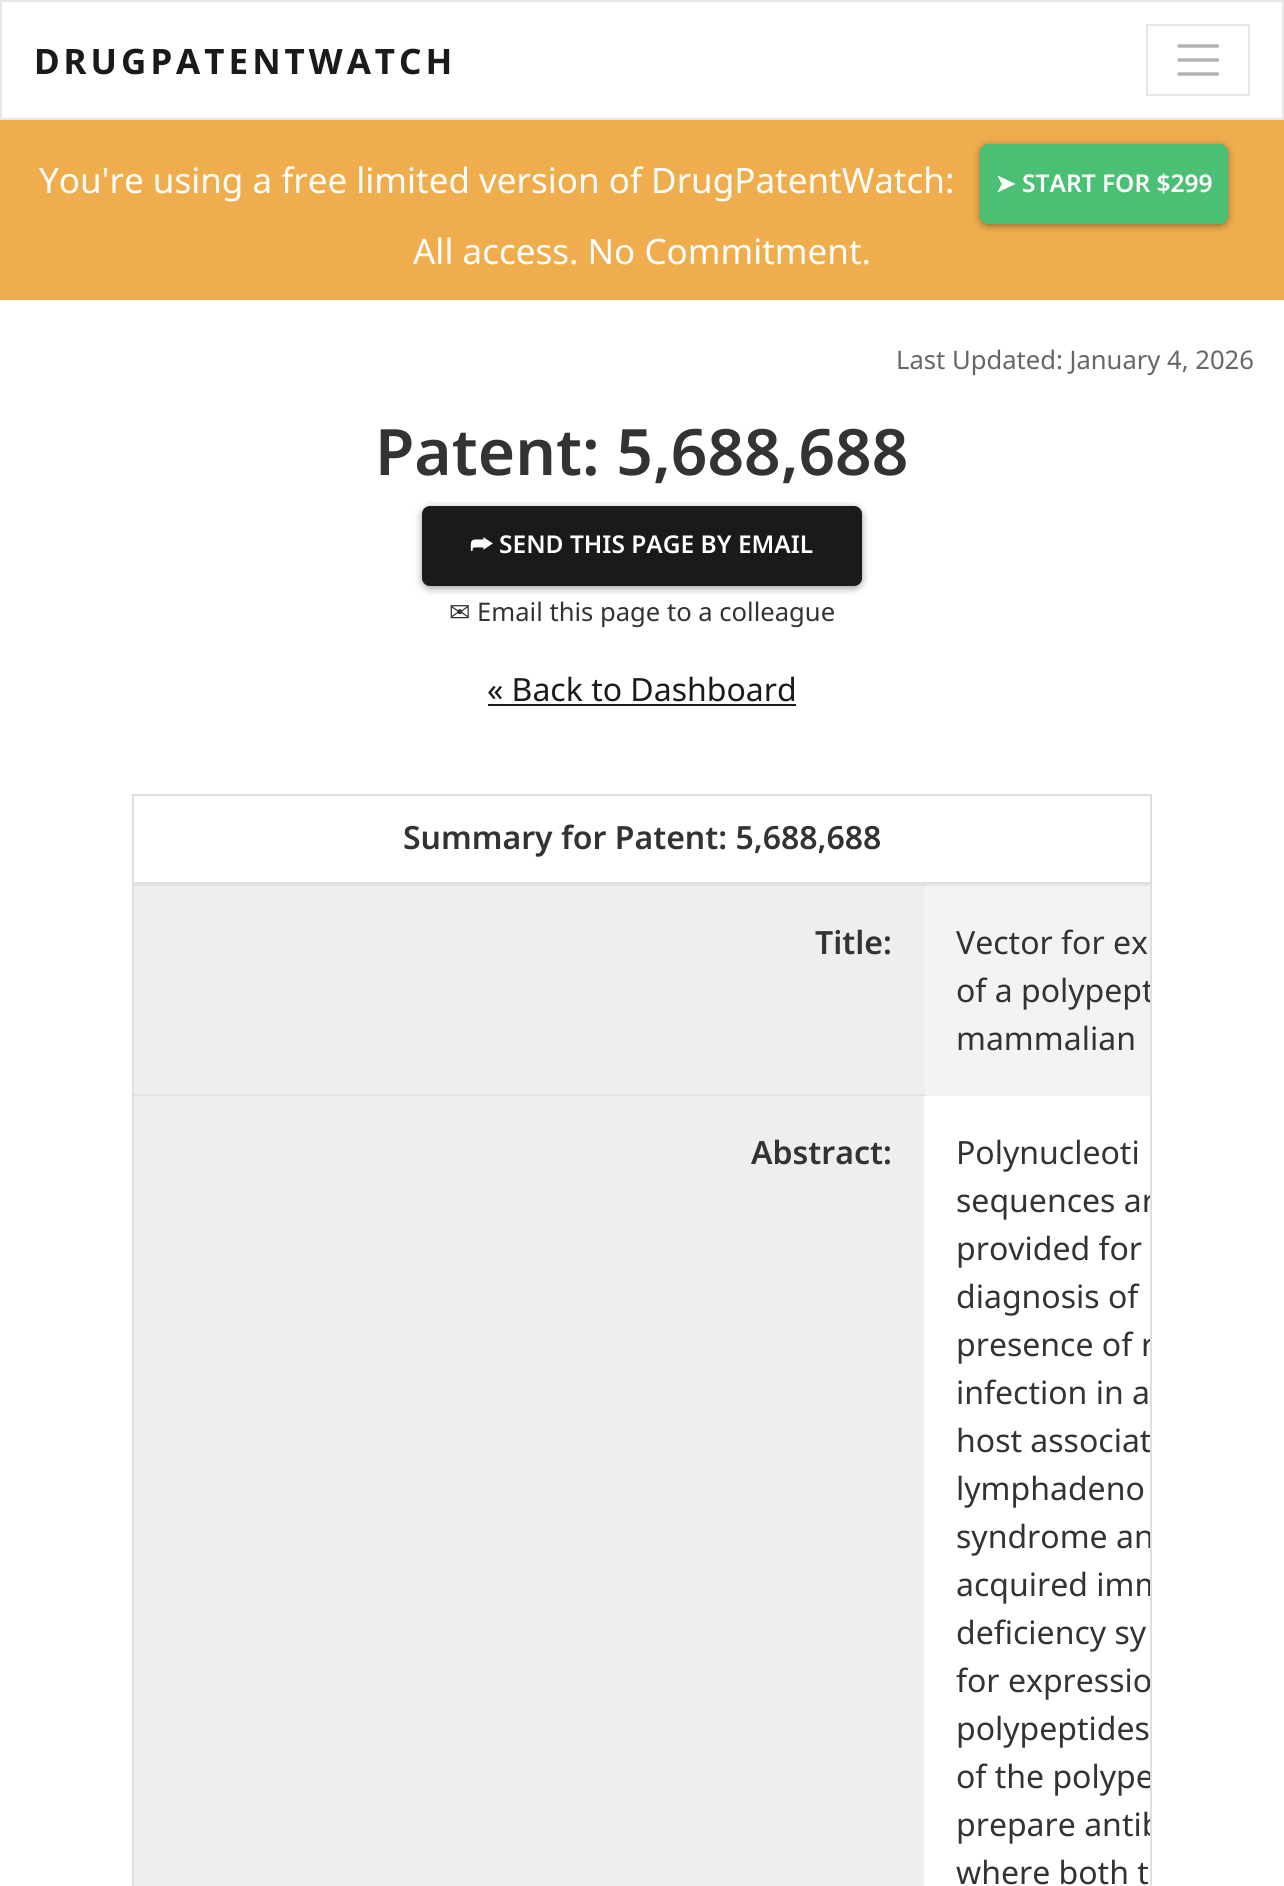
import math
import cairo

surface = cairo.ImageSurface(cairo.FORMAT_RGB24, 1284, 1886)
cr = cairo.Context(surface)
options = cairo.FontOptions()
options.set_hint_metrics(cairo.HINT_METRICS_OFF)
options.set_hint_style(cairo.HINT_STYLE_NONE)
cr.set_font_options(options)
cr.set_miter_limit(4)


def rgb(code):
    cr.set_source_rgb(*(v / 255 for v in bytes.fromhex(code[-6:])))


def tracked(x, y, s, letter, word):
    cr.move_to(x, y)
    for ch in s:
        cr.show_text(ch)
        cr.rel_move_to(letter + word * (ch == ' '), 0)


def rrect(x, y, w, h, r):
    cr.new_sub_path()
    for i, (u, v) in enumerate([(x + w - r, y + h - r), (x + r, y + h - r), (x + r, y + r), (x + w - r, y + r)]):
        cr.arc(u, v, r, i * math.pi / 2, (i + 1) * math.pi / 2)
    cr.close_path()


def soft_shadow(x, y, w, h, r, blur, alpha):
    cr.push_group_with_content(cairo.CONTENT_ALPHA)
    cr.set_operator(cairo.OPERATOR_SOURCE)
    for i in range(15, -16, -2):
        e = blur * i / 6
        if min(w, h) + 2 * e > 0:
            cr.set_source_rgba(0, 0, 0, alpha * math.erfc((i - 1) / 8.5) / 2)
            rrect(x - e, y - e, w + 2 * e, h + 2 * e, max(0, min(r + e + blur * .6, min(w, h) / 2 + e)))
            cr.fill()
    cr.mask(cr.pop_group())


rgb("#ffffff")
cr.paint()
cr.rectangle(1, 1, 1282, 118)
rgb("#e6e6e6")
cr.stroke()
cr.rectangle(1147, 25, 102, 70)
cr.stroke()
cr.new_path()
cr.move_to(1179, 46)
cr.line_to(1217.5, 46)
cr.move_to(1179, 60)
cr.line_to(1217.5, 60)
cr.move_to(1179, 74)
cr.line_to(1217.5, 74)
rgb("#b3b3b3")
cr.set_line_width(3.5)
cr.set_line_cap(cairo.LINE_CAP_ROUND)
cr.stroke()
rgb("#f0ad4e")
cr.rectangle(0, 120, 1284, 180)
cr.fill()
rgb("#000000")
soft_shadow(980, 146, 248, 80, 8, 4, 0.4)
rgb("#4bbf73")
rrect(980, 144, 248, 80, 8)
cr.fill()
rgb("#000000")
soft_shadow(422, 508, 440, 80, 8, 4, 0.4)
rgb("#1a1a1a")
rrect(422, 506, 440, 80, 8)
cr.fill()
cr.rectangle(488, 704, 308, 2)
cr.fill()
cr.rectangle(133, 795, 1018, 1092)
rgb("#dfdfdf")
cr.set_line_width(2)
cr.set_line_cap(cairo.LINE_CAP_BUTT)
cr.stroke()
for x, y, w, h, color in [
    (134, 882, 1016, 2, "#dfdfdf"),
    (924, 886, 226, 208, "#f3f3f3"),
    (134, 886, 790, 208, "#eeeeee"),
    (134, 884, 790, 2, "#e2e2e2"),
    (924, 884, 226, 2, "#e7e7e7"),
    (924, 884, 2, 2, "#dbdbdb"),
    (134, 1096, 790, 790, "#eeeeee"),
    (134, 1094, 790, 2, "#e2e2e2"),
    (924, 1094, 226, 2, "#f2f2f2"),
    (924, 1094, 2, 2, "#e6e6e6"),
]:
    rgb(color)
    cr.rectangle(x, y, w, h)
    cr.fill()
cr.select_font_face("Noto Sans", cairo.FONT_SLANT_NORMAL, cairo.FONT_WEIGHT_BOLD)
cr.set_font_size(35)
rgb("#1a1a1a")
tracked(34, 74, "DRUGPATENTWATCH", 4, 0)
cr.select_font_face("Noto Sans")
rgb("#ffffff")
cr.move_to(39, 193)
cr.show_text("You're using a free limited version of DrugPatentWatch:")
cr.select_font_face("DejaVu Sans", cairo.FONT_SLANT_NORMAL, cairo.FONT_WEIGHT_BOLD)
cr.set_font_size(24.5)
cr.move_to(995, 192)
cr.show_text("➤")
cr.select_font_face("Noto Sans SemiBold")
cr.move_to(1022, 192)
cr.show_text("START FOR $299")
cr.select_font_face("Noto Sans")
cr.set_font_size(35)
cr.move_to(413, 264)
cr.show_text("All access. No Commitment.")
cr.set_font_size(25.6)
rgb("#666666")
cr.move_to(896, 369)
cr.show_text("Last Updated: January 4, 2026")
cr.select_font_face("Noto Sans SemiBold")
cr.set_font_size(64)
rgb("#333333")
cr.move_to(375, 475)
cr.show_text("Patent: 5,688,688")
cr.select_font_face("FreeSans", cairo.FONT_SLANT_NORMAL, cairo.FONT_WEIGHT_BOLD)
cr.set_font_size(24.5)
rgb("#ffffff")
cr.move_to(470, 553)
cr.show_text("⮫")
cr.select_font_face("Noto Sans SemiBold")
cr.move_to(499, 553)
cr.show_text("SEND THIS PAGE BY EMAIL")
cr.select_font_face("DejaVu Sans")
cr.set_font_size(25.6)
rgb("#333333")
cr.move_to(449, 621)
cr.show_text("✉")
cr.select_font_face("Noto Sans")
cr.move_to(477, 621)
cr.show_text("Email this page to a colleague")
cr.set_font_size(32)
rgb("#1a1a1a")
cr.move_to(487, 701)
cr.show_text("« Back to Dashboard")
cr.select_font_face("Noto Sans SemiBold")
rgb("#333333")
cr.move_to(403, 849)
cr.show_text("Summary for Patent: 5,688,688")
cr.move_to(815, 954)
cr.show_text("Title:")
cr.select_font_face("Noto Sans")
cr.move_to(956, 954)
cr.show_text("Vector for ex")
cr.save()
cr.rectangle(134, 884, 1016, 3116)
cr.clip()
cr.move_to(956, 1002)
cr.show_text("of a polypept")
cr.restore()
cr.move_to(956, 1050)
cr.show_text("mammalian")
cr.select_font_face("Noto Sans SemiBold")
cr.move_to(751, 1164)
cr.show_text("Abstract:")
cr.select_font_face("Noto Sans")
cr.move_to(956, 1164)
cr.show_text("Polynucleoti")
cr.save()
cr.rectangle(134, 884, 1016, 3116)
cr.clip()
cr.move_to(956, 1212)
cr.show_text("sequences ar")
cr.restore()
for x, y, s in [
    (956, 1260, "provided for"),
    (956, 1308, "diagnosis of"),
    (956, 1356, "presence of"),
]:
    cr.move_to(x, y)
    cr.show_text(s)
cr.save()
cr.rectangle(134, 884, 1016, 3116)
cr.clip()
cr.move_to(1141, 1356)
cr.show_text("r")
cr.restore()
cr.move_to(956, 1404)
cr.show_text("infection in a")
cr.save()
cr.rectangle(134, 884, 1016, 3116)
cr.clip()
cr.move_to(956, 1452)
cr.show_text("host associat")
cr.restore()
cr.move_to(956, 1500)
cr.show_text("lymphadeno")
cr.save()
cr.rectangle(134, 884, 1016, 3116)
cr.clip()
cr.move_to(956, 1548)
cr.show_text("syndrome an")
cr.move_to(956, 1596)
cr.show_text("acquired imm")
cr.restore()
cr.move_to(956, 1644)
cr.show_text("deficiency sy")
cr.save()
cr.rectangle(134, 884, 1016, 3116)
cr.clip()
cr.move_to(956, 1692)
cr.show_text("for expressio")
cr.restore()
cr.move_to(956, 1740)
cr.show_text("polypeptides")
cr.save()
cr.rectangle(134, 884, 1016, 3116)
cr.clip()
cr.move_to(956, 1788)
cr.show_text("of the polype")
cr.move_to(956, 1836)
cr.show_text("prepare antib")
cr.restore()
cr.move_to(956, 1884)
cr.show_text("where both t")
surface.write_to_png("page.png")
